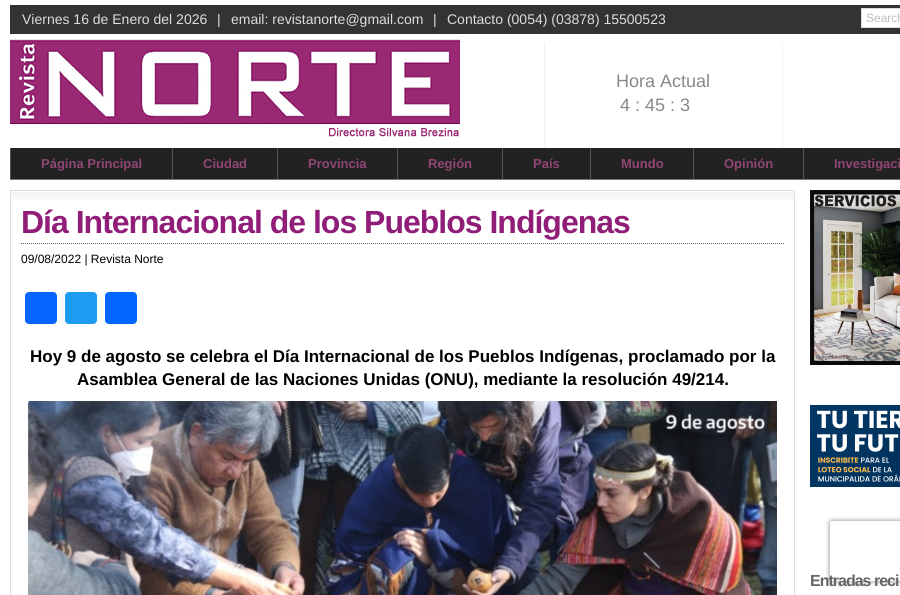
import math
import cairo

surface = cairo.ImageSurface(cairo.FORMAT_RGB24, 900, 595)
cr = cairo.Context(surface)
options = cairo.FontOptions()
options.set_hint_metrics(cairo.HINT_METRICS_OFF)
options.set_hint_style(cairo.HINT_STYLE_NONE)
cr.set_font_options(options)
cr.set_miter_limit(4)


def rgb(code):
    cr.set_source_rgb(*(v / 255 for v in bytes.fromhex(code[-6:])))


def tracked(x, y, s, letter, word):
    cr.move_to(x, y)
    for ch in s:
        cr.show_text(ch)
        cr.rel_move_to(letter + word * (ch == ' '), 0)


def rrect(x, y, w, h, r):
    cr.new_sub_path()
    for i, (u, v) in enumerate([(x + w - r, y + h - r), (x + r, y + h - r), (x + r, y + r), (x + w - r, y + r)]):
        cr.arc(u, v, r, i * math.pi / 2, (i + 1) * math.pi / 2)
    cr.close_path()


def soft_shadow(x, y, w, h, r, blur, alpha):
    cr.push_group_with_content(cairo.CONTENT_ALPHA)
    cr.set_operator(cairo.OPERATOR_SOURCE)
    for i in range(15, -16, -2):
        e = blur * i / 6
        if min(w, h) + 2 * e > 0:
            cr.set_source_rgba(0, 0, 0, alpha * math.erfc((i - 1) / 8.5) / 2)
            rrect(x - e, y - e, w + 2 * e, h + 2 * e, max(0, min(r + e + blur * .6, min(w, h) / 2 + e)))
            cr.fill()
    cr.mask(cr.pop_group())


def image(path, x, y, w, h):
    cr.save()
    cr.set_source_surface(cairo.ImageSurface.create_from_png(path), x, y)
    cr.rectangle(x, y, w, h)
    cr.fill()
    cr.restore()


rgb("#ffffff")
cr.paint()
rgb("#333333")
cr.rectangle(10, 5, 890, 29)
cr.fill()
rgb("#ffffff")
cr.rectangle(861.5, 8.5, 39, 19)
cr.fill_preserve()
rgb("#dddddd")
cr.set_line_width(1)
cr.stroke()
image("img/1.png", 10, 39, 450, 98)
for x, y, w, h, color in [
    (782, 43, 1, 105, "#f1f1f1"),
    (544, 43, 1, 105, "#f1f1f1"),
    (11, 148, 889, 31, "#222222"),
    (10, 179, 890, 1, "#777777"),
    (10, 148, 1, 31, "#555555"),
    (172, 148, 1, 31, "#555555"),
    (277, 148, 1, 31, "#555555"),
    (397, 148, 1, 31, "#555555"),
    (502, 148, 1, 31, "#555555"),
    (590, 148, 1, 31, "#555555"),
    (693, 148, 1, 31, "#555555"),
    (803, 148, 1, 31, "#555555"),
]:
    rgb(color)
    cr.rectangle(x, y, w, h)
    cr.fill()
image("img/2.png", 11, 192, 783, 8)
cr.rectangle(10.5, 190.5, 784, 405)
rgb("#dddddd")
cr.stroke()
cr.new_path()
cr.move_to(21, 243.5)
cr.line_to(784, 243.5)
rgb("#666666")
cr.set_dash([1, 1])
cr.stroke()
rgb("#0866ff")
rrect(25, 292, 32, 32, 4)
cr.fill()
rgb("#1d9bf0")
rrect(65, 292, 32, 32, 4)
cr.fill()
rgb("#0166ff")
rrect(105, 292, 32, 32, 4)
cr.fill()
image("img/3.png", 28, 401, 749, 194)
image("img/4.png", 810, 190, 90, 175)
image("img/5.png", 810, 405, 90, 82)
cr.save()
cr.set_fill_rule(cairo.FILL_RULE_EVEN_ODD)
cr.new_path()
cr.move_to(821, 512)
cr.line_to(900, 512)
cr.line_to(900, 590)
cr.line_to(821, 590)
cr.close_path()
cr.move_to(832, 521)
cr.line_to(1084, 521)
cr.curve_to(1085, 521, 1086, 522, 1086, 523)
cr.line_to(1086, 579)
cr.curve_to(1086, 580, 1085, 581, 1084, 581)
cr.line_to(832, 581)
cr.curve_to(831, 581, 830, 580, 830, 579)
cr.line_to(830, 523)
cr.curve_to(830, 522, 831, 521, 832, 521)
cr.close_path()
cr.clip()
rgb("#808080")
soft_shadow(830, 521, 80, 60, 2, 2.5, 1)
cr.restore()
cr.select_font_face("Liberation Sans")
cr.set_font_size(14)
rgb("#dddddd")
for x, y, s in [
    (22, 24, "Viernes 16 de Enero del 2026"),
    (217, 24, "|"),
    (231, 24, "email: revistanorte@gmail.com"),
    (433, 24, "|"),
    (447, 24, "Contacto (0054) (03878) 15500523"),
]:
    cr.move_to(x, y)
    cr.show_text(s)
cr.set_font_size(12)
rgb("#bcbcbc")
cr.move_to(866, 22)
cr.show_text("Search")
cr.set_font_size(18)
rgb("#888888")
cr.move_to(616, 87)
cr.show_text("Hora Actual")
cr.move_to(620, 111)
cr.show_text("4 : 45 : 3")
cr.select_font_face("Liberation Sans", cairo.FONT_SLANT_NORMAL, cairo.FONT_WEIGHT_BOLD)
cr.set_font_size(13)
rgb("#8f4674")
for x, y, s in [
    (41, 168, "Página Principal"),
    (203, 168, "Ciudad"),
    (308, 168, "Provincia"),
    (428, 168, "Región"),
    (533, 168, "País"),
    (621, 168, "Mundo"),
    (724, 168, "Opinión"),
    (834, 168, "Investigaci"),
]:
    cr.move_to(x, y)
    cr.show_text(s)
cr.set_font_size(32)
rgb("#901d78")
tracked(21, 233, "Día Internacional de los Pueblos Indígenas", -1, 0)
cr.select_font_face("Liberation Sans")
cr.set_font_size(12)
rgb("#000000")
cr.move_to(21, 263)
cr.show_text("09/08/2022 | Revista Norte")
cr.select_font_face("Liberation Sans", cairo.FONT_SLANT_NORMAL, cairo.FONT_WEIGHT_BOLD)
cr.set_font_size(17)
cr.move_to(30, 362)
cr.show_text("Hoy 9 de agosto se celebra el Día Internacional de los Pueblos Indígenas, proclamado por la")
cr.move_to(77, 385)
cr.show_text("Asamblea General de las Naciones Unidas (ONU), mediante la resolución 49/214.")
cr.set_font_size(16)
rgb("#666666")
tracked(810, 586, "Entradas reci", -1, 0)
surface.write_to_png("page.png")
